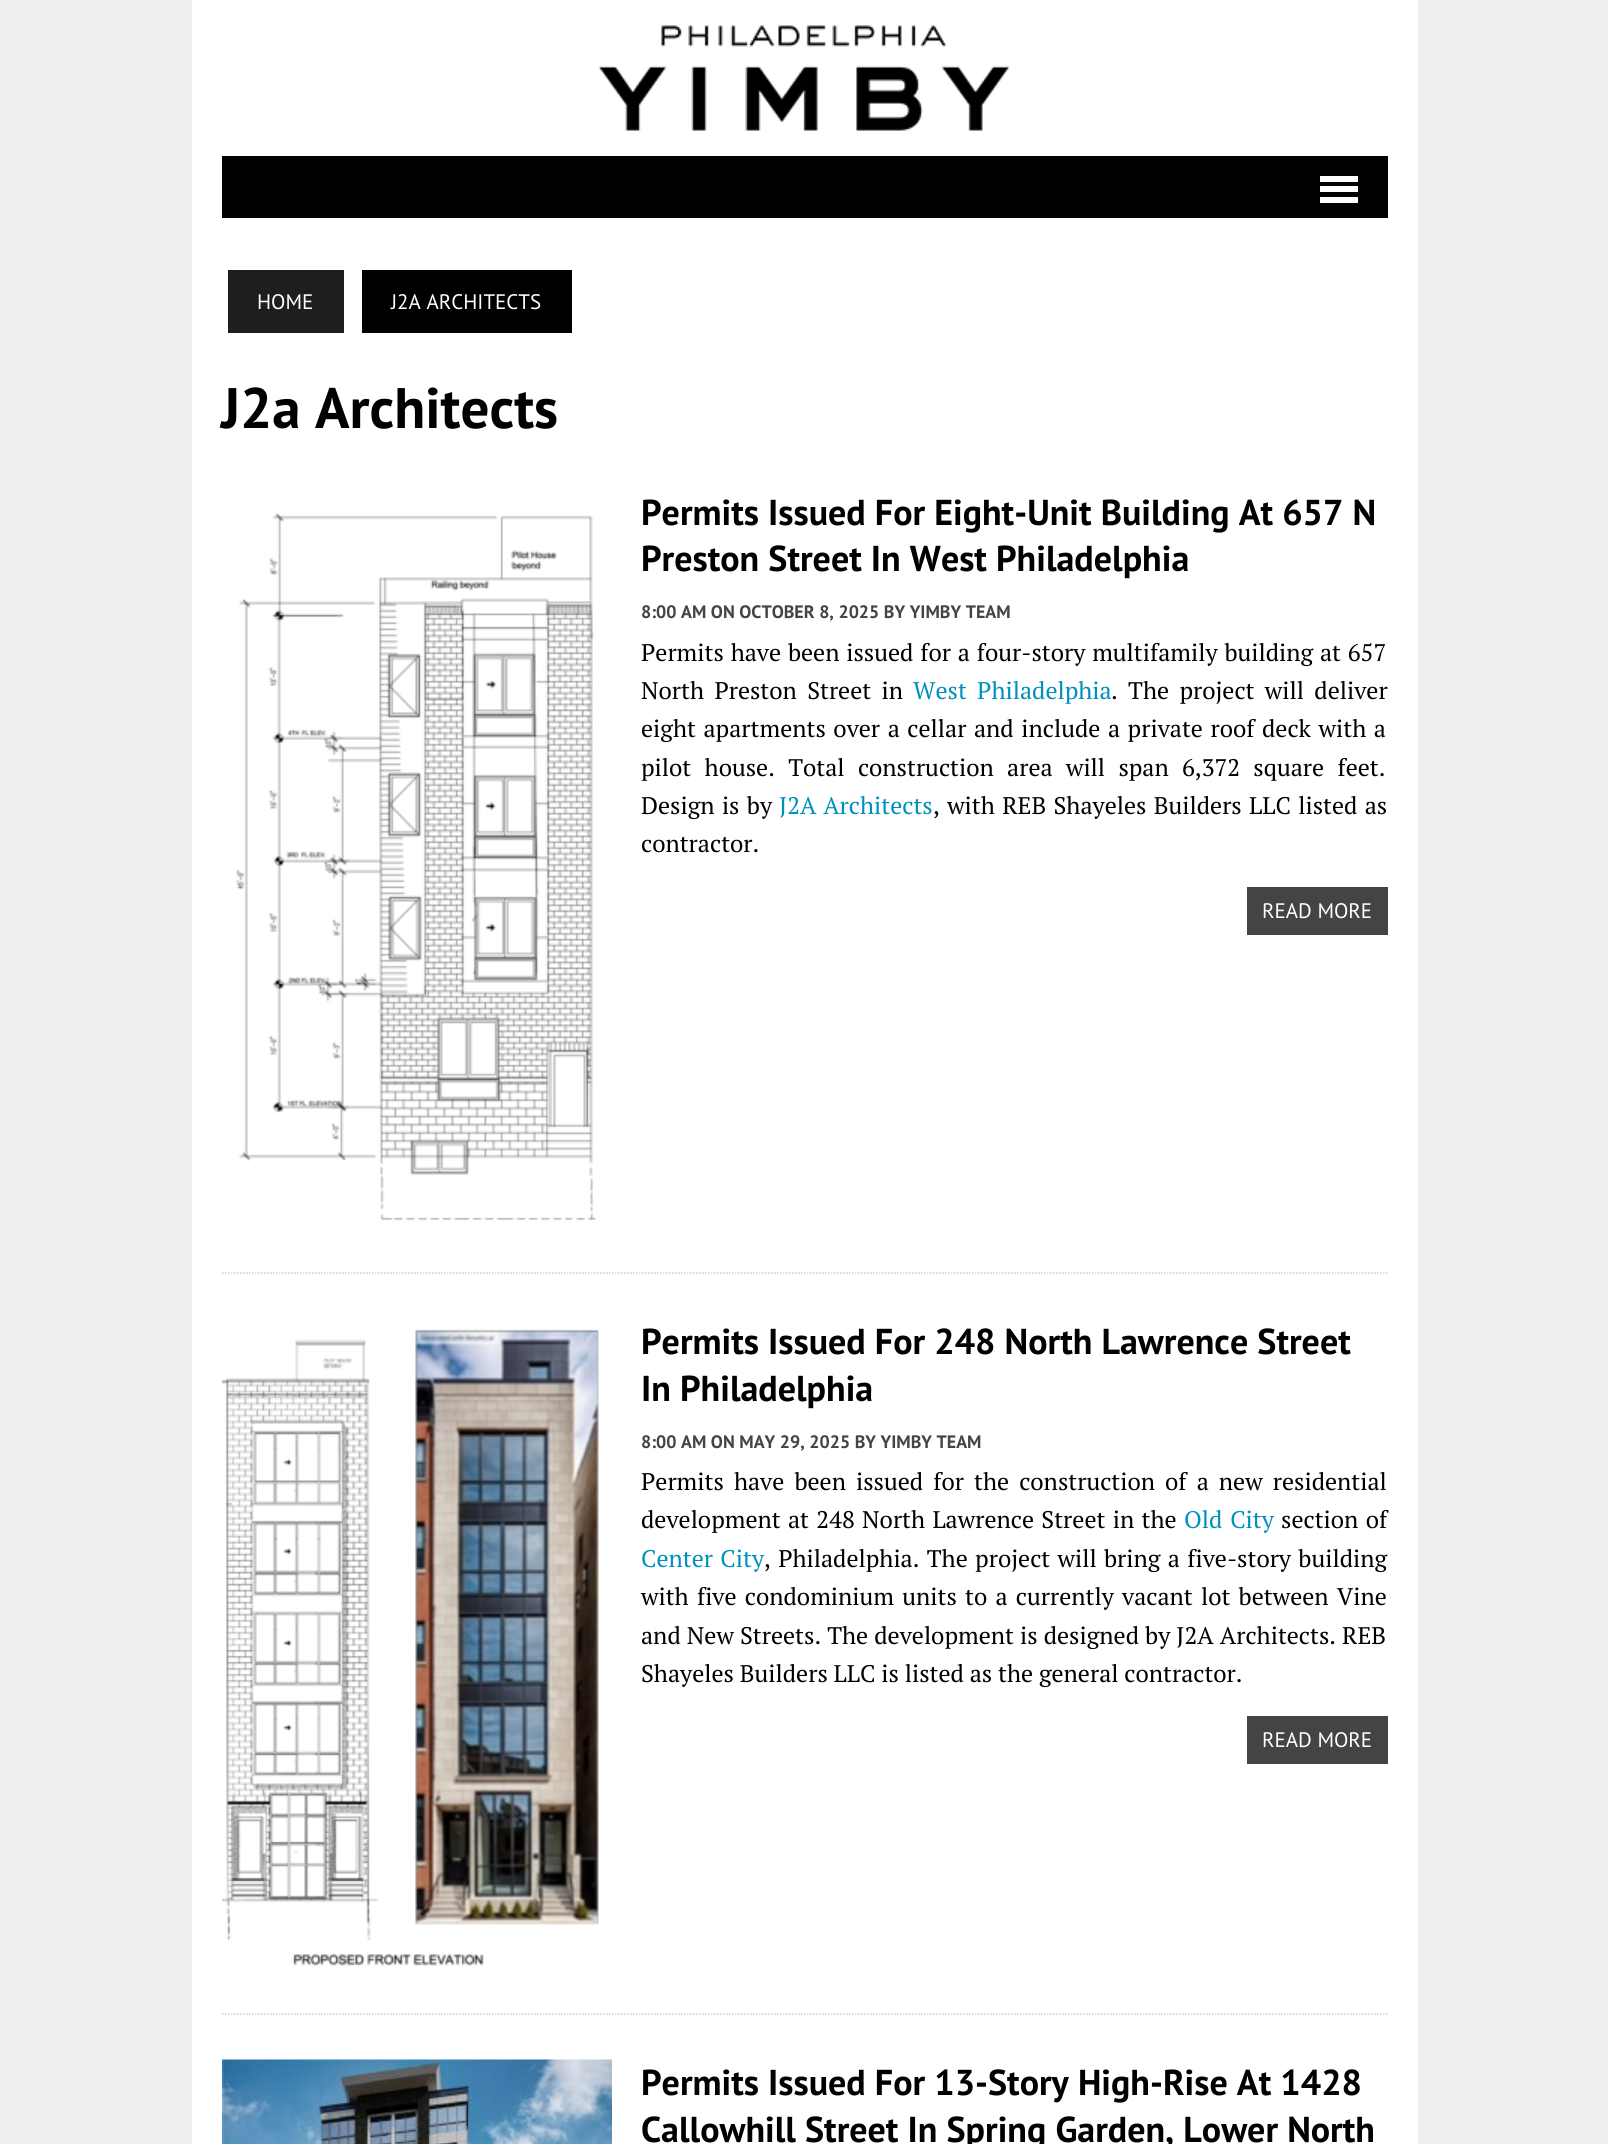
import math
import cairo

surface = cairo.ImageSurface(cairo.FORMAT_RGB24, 1608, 2144)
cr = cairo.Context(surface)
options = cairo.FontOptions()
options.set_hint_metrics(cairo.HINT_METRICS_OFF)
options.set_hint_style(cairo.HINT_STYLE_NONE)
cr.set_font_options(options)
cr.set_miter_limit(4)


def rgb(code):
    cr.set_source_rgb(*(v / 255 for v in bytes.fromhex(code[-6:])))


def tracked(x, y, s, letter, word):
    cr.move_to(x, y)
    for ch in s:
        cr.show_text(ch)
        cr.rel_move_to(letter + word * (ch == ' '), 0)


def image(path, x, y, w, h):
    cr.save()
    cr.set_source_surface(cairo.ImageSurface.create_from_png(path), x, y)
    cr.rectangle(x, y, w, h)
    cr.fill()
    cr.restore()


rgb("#efefef")
cr.paint()
rgb("#ffffff")
cr.rectangle(192, 0, 1226, 2144)
cr.fill()
image("img/1.png", 598, 25, 412, 106)
for x, y, w, h, color in [
    (222, 156, 1166, 62, "#000000"),
    (1320, 176, 38, 6, "#ffffff"),
    (1320, 186, 38, 6, "#ffffff"),
    (1320, 197, 38, 6, "#ffffff"),
    (228, 270, 116, 63, "#1f1e1e"),
    (362, 270, 210, 63, "#000000"),
]:
    rgb(color)
    cr.rectangle(x, y, w, h)
    cr.fill()
image("img/2.png", 235, 513, 362, 708)
rgb("#444444")
cr.rectangle(1247, 887, 141, 48)
cr.fill()
cr.new_path()
cr.move_to(222, 1273)
cr.line_to(1387.5, 1273)
rgb("#cdcdcd")
cr.set_line_width(1.5)
cr.set_dash([1.5, 1.5])
cr.stroke()
image("img/3.png", 222, 1329, 377, 637)
rgb("#444444")
cr.rectangle(1247, 1716, 141, 48)
cr.fill()
cr.new_path()
cr.move_to(222, 2014)
cr.line_to(1387.5, 2014)
rgb("#cdcdcd")
cr.stroke()
image("img/4.png", 222, 2059, 390, 85)
cr.select_font_face("PT Sans")
cr.set_font_size(21)
rgb("#ffffff")
cr.move_to(257, 309)
cr.show_text("HOME")
cr.move_to(391, 309)
cr.show_text("J2A ARCHITECTS")
cr.select_font_face("PT Sans", cairo.FONT_SLANT_NORMAL, cairo.FONT_WEIGHT_BOLD)
cr.set_font_size(57)
rgb("#000000")
cr.move_to(221, 428)
cr.show_text("J2a Architects")
cr.set_font_size(36)
cr.move_to(641, 525)
cr.show_text("Permits Issued For Eight-Unit Building At 657 N")
cr.move_to(641, 571)
cr.show_text("Preston Street In West Philadelphia")
cr.set_font_size(18)
rgb("#444444")
cr.move_to(641, 618)
cr.show_text("8:00 AM ON OCTOBER 8, 2025 BY YIMBY TEAM")
cr.select_font_face("PT Serif")
cr.set_font_size(24)
rgb("#000000")
tracked(641, 661, "Permits have been issued for a four-story multifamily building at 657", 0, 1)
tracked(641, 699, "North Preston Street in", 0, 4.5)
rgb("#0090bc")
tracked(913, 699, "West Philadelphia", 0, 4.5)
rgb("#000000")
tracked(1111, 699, ". The project will deliver", 0, 4.5)
tracked(641, 737, "eight apartments over a cellar and include a private roof deck with a", 0, 1.75)
tracked(641, 776, "pilot house. Total construction area will span 6,372 square feet.", 0, 7.5)
tracked(641, 814, "Design is by", 0, 1.5)
rgb("#0090bc")
tracked(779, 814, "J2A Architects", 0, 1)
rgb("#000000")
tracked(933, 814, ", with REB Shayeles Builders LLC listed as", 0, 1.5)
cr.move_to(641, 852)
cr.show_text("contractor.")
cr.select_font_face("PT Sans")
cr.set_font_size(21)
rgb("#ffffff")
cr.move_to(1262, 918)
cr.show_text("READ MORE")
cr.select_font_face("PT Sans", cairo.FONT_SLANT_NORMAL, cairo.FONT_WEIGHT_BOLD)
cr.set_font_size(36)
rgb("#000000")
cr.move_to(641, 1354)
cr.show_text("Permits Issued For 248 North Lawrence Street")
cr.move_to(641, 1401)
cr.show_text("In Philadelphia")
cr.set_font_size(18)
rgb("#444444")
cr.move_to(641, 1448)
cr.show_text("8:00 AM ON MAY 29, 2025 BY YIMBY TEAM")
cr.select_font_face("PT Serif")
cr.set_font_size(24)
rgb("#000000")
tracked(641, 1490, "Permits have been issued for the construction of a new residential", 0, 4.25)
tracked(641, 1528, "development at 248 North Lawrence Street in the", 0, 1.5)
rgb("#0090bc")
tracked(1184, 1528, "Old City", 0, 2)
rgb("#000000")
tracked(1281, 1528, "section of", 0, 1.5)
rgb("#0090bc")
tracked(641, 1567, "Center City", 0, 1.5)
rgb("#000000")
tracked(764, 1567, ", Philadelphia. The project will bring a five-story building", 0, 1.5)
tracked(641, 1605, "with five condominium units to a currently vacant lot between Vine", 0, 2.4)
tracked(641, 1644, "and New Streets. The development is designed by J2A Architects. REB", 0, 0.25)
cr.move_to(641, 1682)
cr.show_text("Shayeles Builders LLC is listed as the general contractor.")
cr.select_font_face("PT Sans")
cr.set_font_size(21)
rgb("#ffffff")
cr.move_to(1262, 1747)
cr.show_text("READ MORE")
cr.select_font_face("PT Sans", cairo.FONT_SLANT_NORMAL, cairo.FONT_WEIGHT_BOLD)
cr.set_font_size(36)
rgb("#000000")
cr.move_to(641, 2095)
cr.show_text("Permits Issued For 13-Story High-Rise At 1428")
cr.move_to(641, 2142)
cr.show_text("Callowhill Street In Spring Garden, Lower North")
surface.write_to_png("page.png")
